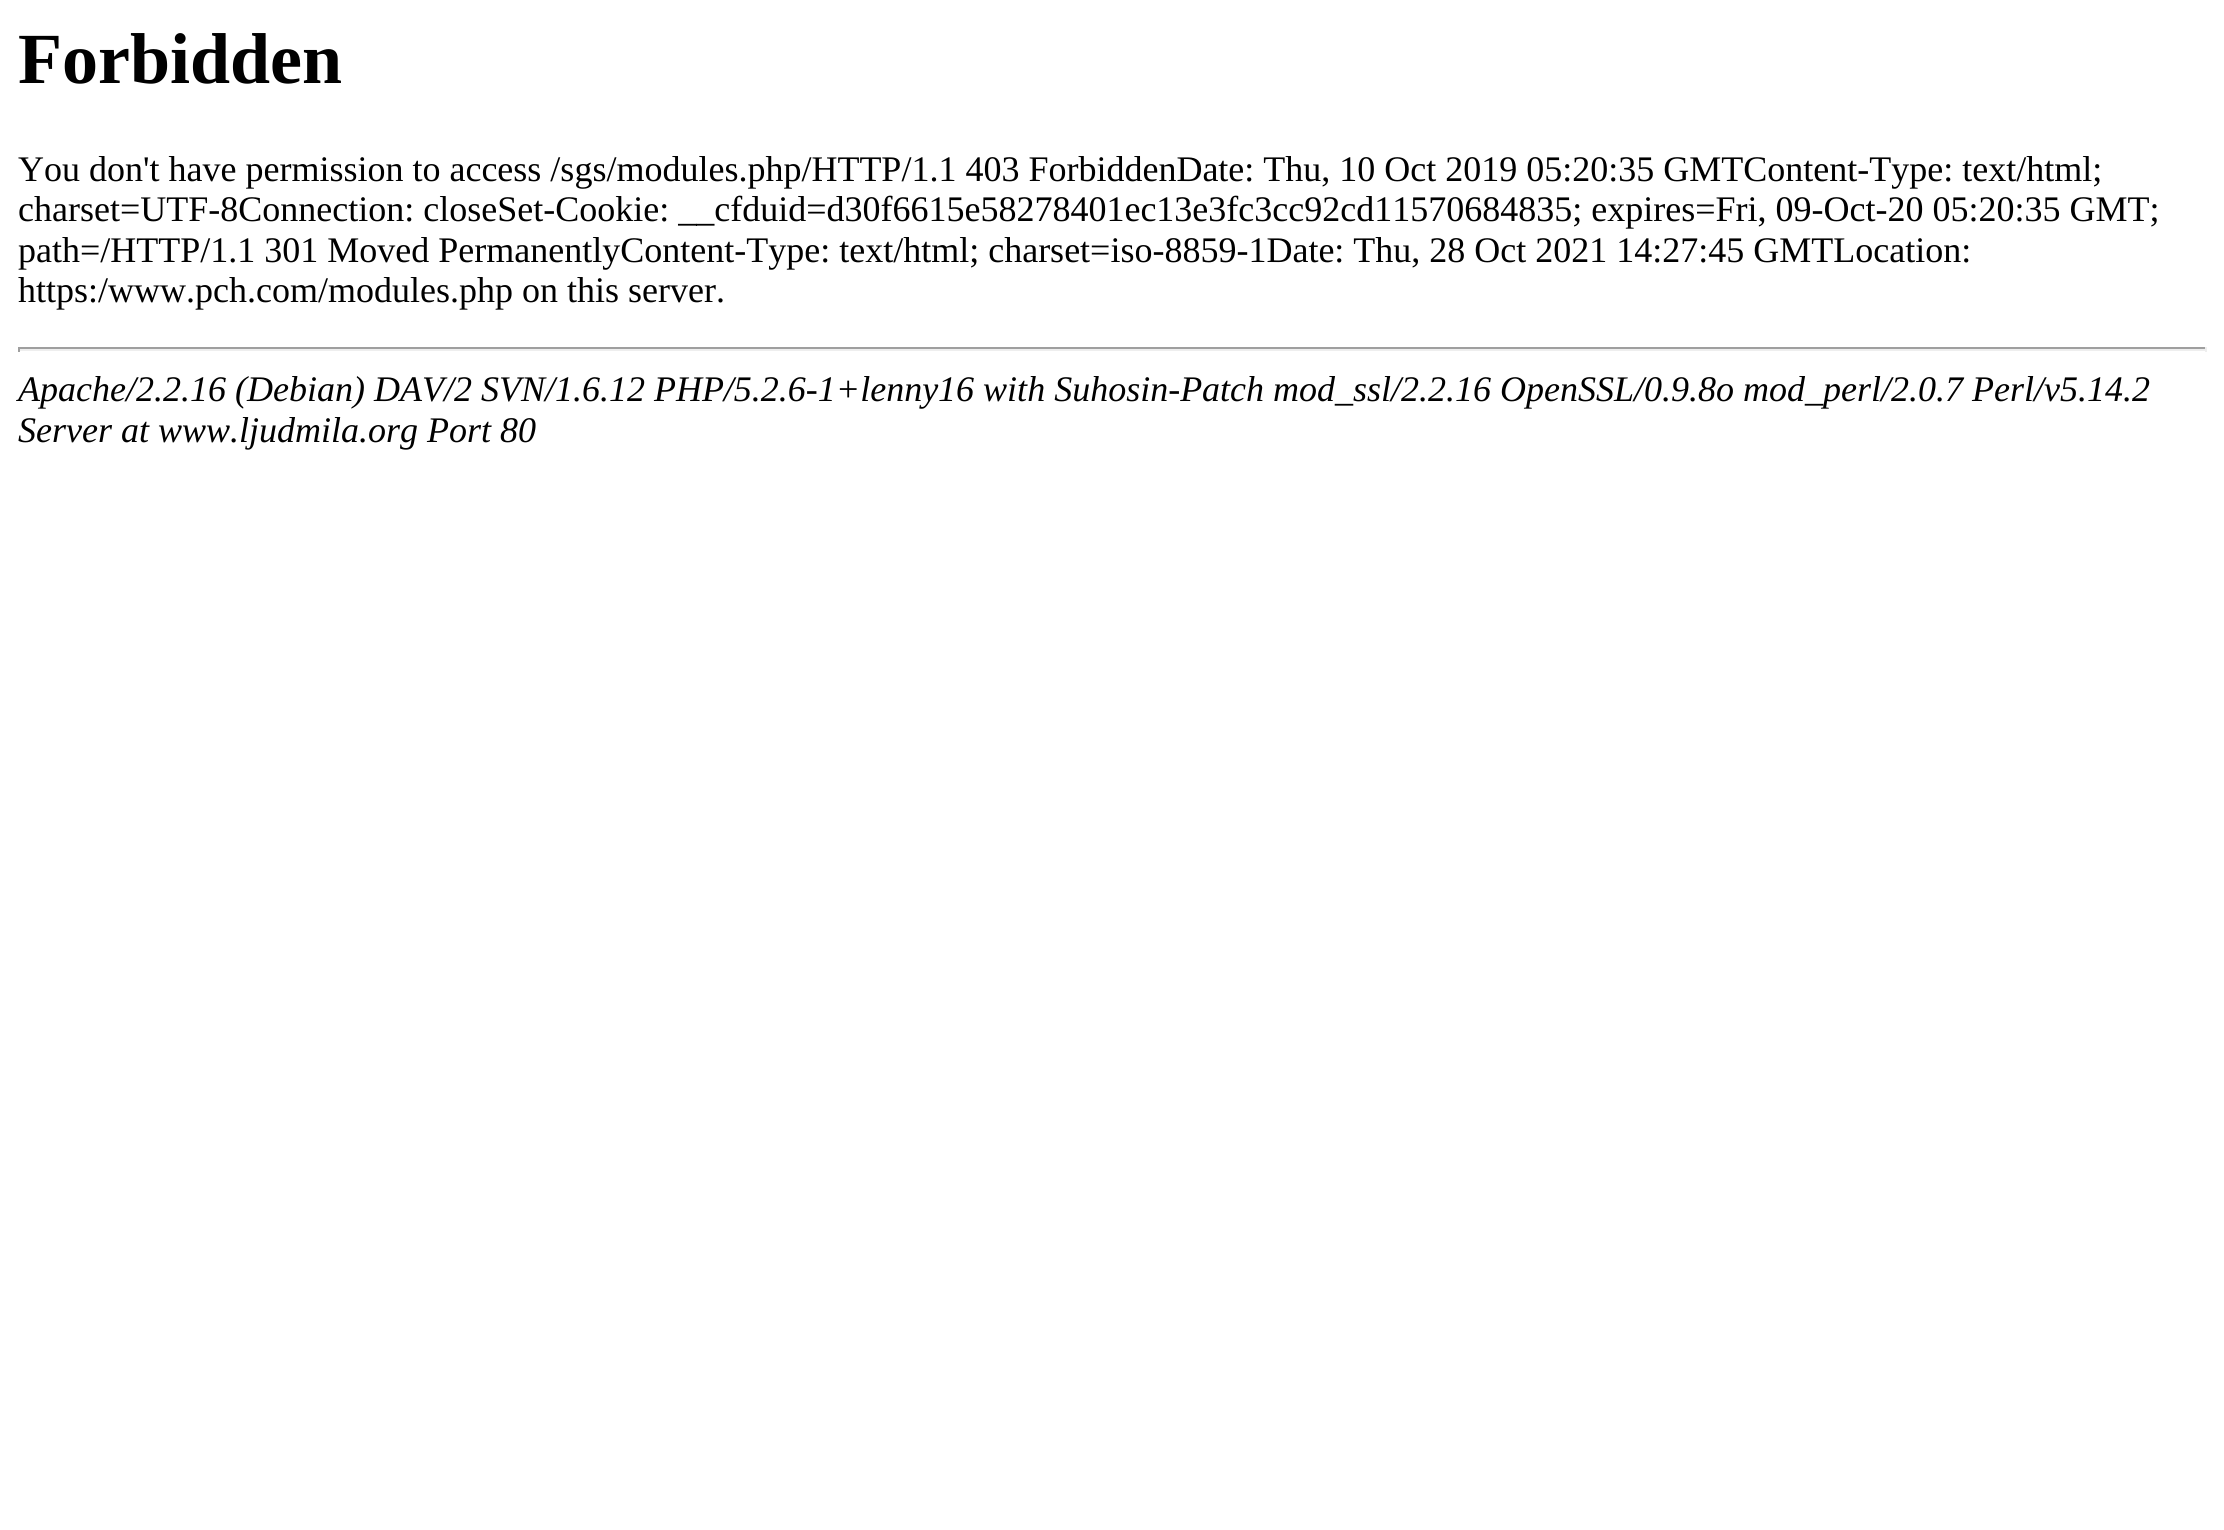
import math
import cairo

surface = cairo.ImageSurface(cairo.FORMAT_RGB24, 2224, 1530)
cr = cairo.Context(surface)
options = cairo.FontOptions()
options.set_hint_metrics(cairo.HINT_METRICS_OFF)
options.set_hint_style(cairo.HINT_STYLE_NONE)
cr.set_font_options(options)
cr.set_miter_limit(4)


def rgb(code):
    cr.set_source_rgb(*(v / 255 for v in bytes.fromhex(code[-6:])))


rgb("#ffffff")
cr.paint()
for x, y, w, h, color in [
    (18, 347, 2189, 2, "#9f9f9f"),
    (2205, 347, 2, 5, "#eeeeee"),
    (18, 349, 2189, 2, "#eeeeee"),
    (18, 347, 2, 5, "#9f9f9f"),
]:
    rgb(color)
    cr.rectangle(x, y, w, h)
    cr.fill()
cr.select_font_face("Liberation Serif", cairo.FONT_SLANT_NORMAL, cairo.FONT_WEIGHT_BOLD)
cr.set_font_size(72)
rgb("#000000")
cr.move_to(18, 83)
cr.show_text("Forbidden")
cr.select_font_face("Liberation Serif")
cr.set_font_size(36)
for x, y, s in [
    (18, 181, "You don't have permission to access /sgs/modules.php/HTTP/1.1 403 ForbiddenDate: Thu, 10 Oct 2019 05:20:35 GMTContent-Type: text/html;"),
    (18, 221, "charset=UTF-8Connection: closeSet-Cookie: __cfduid=d30f6615e58278401ec13e3fc3cc92cd11570684835; expires=Fri, 09-Oct-20 05:20:35 GMT;"),
    (18, 262, "path=/HTTP/1.1 301 Moved PermanentlyContent-Type: text/html; charset=iso-8859-1Date: Thu, 28 Oct 2021 14:27:45 GMTLocation:"),
    (18, 302, "https:/www.pch.com/modules.php on this server."),
]:
    cr.move_to(x, y)
    cr.show_text(s)
cr.select_font_face("Liberation Serif", cairo.FONT_SLANT_ITALIC)
cr.move_to(18, 401)
cr.show_text("Apache/2.2.16 (Debian) DAV/2 SVN/1.6.12 PHP/5.2.6-1+lenny16 with Suhosin-Patch mod_ssl/2.2.16 OpenSSL/0.9.8o mod_perl/2.0.7 Perl/v5.14.2")
cr.move_to(18, 442)
cr.show_text("Server at www.ljudmila.org Port 80")
surface.write_to_png("page.png")
